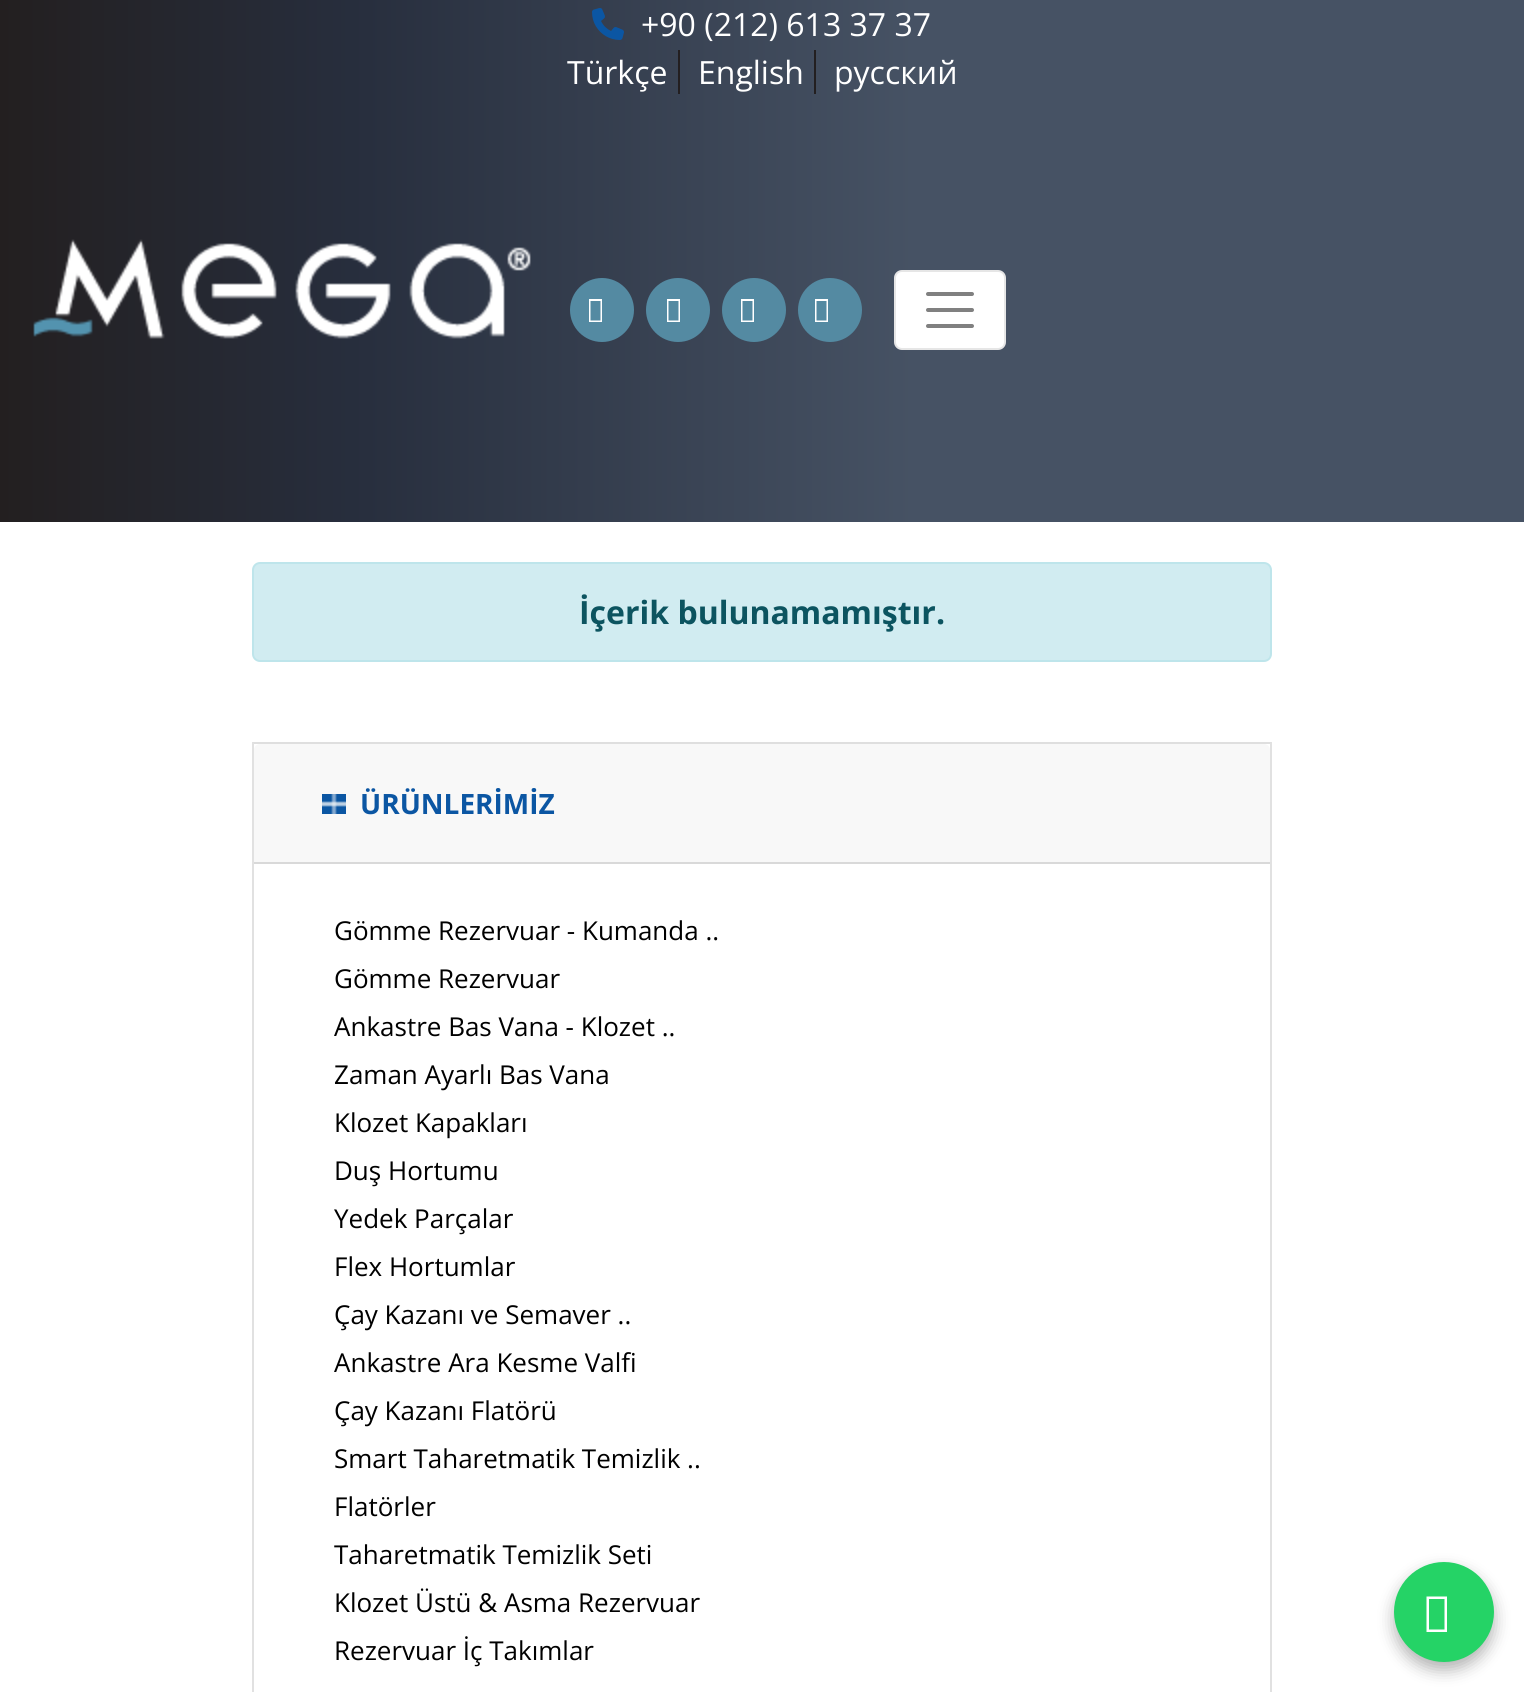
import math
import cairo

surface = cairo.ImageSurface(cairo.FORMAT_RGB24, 1524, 1692)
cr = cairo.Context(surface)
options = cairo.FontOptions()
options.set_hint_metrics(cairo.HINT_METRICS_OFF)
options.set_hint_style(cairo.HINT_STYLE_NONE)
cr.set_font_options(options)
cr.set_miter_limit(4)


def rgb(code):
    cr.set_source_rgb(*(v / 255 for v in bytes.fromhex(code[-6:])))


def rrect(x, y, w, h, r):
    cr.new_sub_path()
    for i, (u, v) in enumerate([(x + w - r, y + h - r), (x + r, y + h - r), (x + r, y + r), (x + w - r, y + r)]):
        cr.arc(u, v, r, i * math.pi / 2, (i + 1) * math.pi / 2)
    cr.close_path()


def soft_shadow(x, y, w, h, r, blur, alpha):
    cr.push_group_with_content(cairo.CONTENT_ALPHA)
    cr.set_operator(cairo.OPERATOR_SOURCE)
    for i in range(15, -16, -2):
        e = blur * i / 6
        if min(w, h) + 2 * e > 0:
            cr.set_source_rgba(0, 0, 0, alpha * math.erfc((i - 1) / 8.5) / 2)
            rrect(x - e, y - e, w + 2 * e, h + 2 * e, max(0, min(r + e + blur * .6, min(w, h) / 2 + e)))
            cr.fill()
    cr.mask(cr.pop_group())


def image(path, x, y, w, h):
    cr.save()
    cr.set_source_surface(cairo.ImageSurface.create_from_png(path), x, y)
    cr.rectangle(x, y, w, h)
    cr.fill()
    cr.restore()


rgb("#ffffff")
cr.paint()
gradient = cairo.LinearGradient(0, 261, 1524, 261)
gradient.add_color_stop_rgba(0, 0.137, 0.122, 0.125, 1)
gradient.add_color_stop_rgba(0.23, 0.153, 0.18, 0.239, 1)
gradient.add_color_stop_rgba(0.6, 0.275, 0.322, 0.392, 1)
cr.set_source(gradient)
cr.rectangle(0, 0, 1524, 522)
cr.fill()
image("img/1.png", 592, 8, 32, 32)
rgb("#231f20")
cr.rectangle(678, 50, 2, 44)
cr.fill()
cr.rectangle(814, 50, 2, 44)
cr.fill()
image("img/2.png", 33, 239, 498, 100)
rgb("#548aa2")
cr.arc(602, 310, 32, 0, 2 * math.pi)
cr.fill()
rgb("#ffffff")
cr.new_path()
cr.move_to(589, 322)
cr.line_to(589, 299)
cr.line_to(602, 299)
cr.line_to(602, 322)
cr.close_path()
cr.move_to(590.5, 320.5)
cr.line_to(600.5, 320.5)
cr.line_to(600.5, 301)
cr.line_to(590.5, 301)
cr.close_path()
cr.fill()
rgb("#548aa2")
cr.arc(678, 310, 32, 0, 2 * math.pi)
cr.fill()
rgb("#ffffff")
cr.new_path()
cr.move_to(667, 322)
cr.line_to(667, 299)
cr.line_to(680, 299)
cr.line_to(680, 322)
cr.close_path()
cr.move_to(668.5, 320.5)
cr.line_to(678.5, 320.5)
cr.line_to(678.5, 301)
cr.line_to(668.5, 301)
cr.close_path()
cr.fill()
rgb("#548aa2")
cr.arc(754, 310, 32, 0, 2 * math.pi)
cr.fill()
rgb("#ffffff")
cr.new_path()
cr.move_to(741, 322)
cr.line_to(741, 299)
cr.line_to(754, 299)
cr.line_to(754, 322)
cr.close_path()
cr.move_to(742.5, 320.5)
cr.line_to(752.5, 320.5)
cr.line_to(752.5, 301)
cr.line_to(742.5, 301)
cr.close_path()
cr.fill()
rgb("#548aa2")
cr.arc(830, 310, 32, 0, 2 * math.pi)
cr.fill()
rgb("#ffffff")
cr.new_path()
cr.move_to(815, 322)
cr.line_to(815, 299)
cr.line_to(828, 299)
cr.line_to(828, 322)
cr.close_path()
cr.move_to(816.5, 320.5)
cr.line_to(826.5, 320.5)
cr.line_to(826.5, 301)
cr.line_to(816.5, 301)
cr.close_path()
cr.fill()
rrect(894, 270, 112, 80, 8)
cr.fill()
rrect(895, 271, 110, 78, 7)
cr.set_source_rgba(0, 0, 0, 0.1)
cr.stroke()
cr.new_path()
cr.move_to(928, 294)
cr.line_to(972, 294)
cr.move_to(928, 310)
cr.line_to(972, 310)
cr.move_to(928, 326)
cr.line_to(972, 326)
rgb("#808080")
cr.set_line_width(4)
cr.set_line_cap(cairo.LINE_CAP_ROUND)
cr.stroke()
rgb("#d1ecf1")
rrect(253, 563, 1018, 98, 7)
cr.fill_preserve()
rgb("#bee5eb")
cr.set_line_width(2)
cr.set_line_cap(cairo.LINE_CAP_BUTT)
cr.stroke()
rgb("#dfdfdf")
cr.new_path()
cr.move_to(252, 742)
cr.line_to(1272, 742)
cr.line_to(1270, 744)
cr.line_to(254, 744)
cr.close_path()
cr.fill()
cr.set_source_rgba(0, 0, 0, 0.12)
cr.new_path()
cr.move_to(1272, 742)
cr.line_to(1272, 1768)
cr.line_to(1270, 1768)
cr.line_to(1270, 744)
cr.close_path()
cr.fill()
cr.new_path()
cr.move_to(252, 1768)
cr.line_to(252, 742)
cr.line_to(254, 744)
cr.line_to(254, 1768)
cr.close_path()
cr.fill()
rgb("#f8f8f8")
cr.new_path()
cr.move_to(260, 744)
cr.line_to(1264, 744)
cr.curve_to(1267.5, 744, 1270, 746.5, 1270, 750)
cr.line_to(1270, 864)
cr.line_to(254, 864)
cr.line_to(254, 750)
cr.curve_to(254, 746.5, 256.5, 744, 260, 744)
cr.close_path()
cr.fill()
rgb("#d9d9d9")
cr.rectangle(254, 862, 1016, 2)
cr.fill()
image("img/3.png", 322, 794, 24, 20)
rgb("#000000")
soft_shadow(1394, 1570, 100, 100, 50, 8, 0.3)
rgb("#25d366")
cr.arc(1444, 1612, 50, 0, 2 * math.pi)
cr.fill()
rgb("#ffffff")
cr.new_path()
cr.move_to(1426.5, 1632)
cr.line_to(1426.5, 1596.5)
cr.line_to(1447, 1596.5)
cr.line_to(1447, 1632)
cr.close_path()
cr.move_to(1429, 1629.5)
cr.line_to(1444.5, 1629.5)
cr.line_to(1444.5, 1599)
cr.line_to(1429, 1599)
cr.close_path()
cr.fill()
cr.select_font_face("Open Sans")
cr.set_font_size(32)
for x, y, s in [
    (641, 36, "+90 (212) 613 37 37"),
    (567, 84, "Türkçe"),
    (698, 84, "English"),
    (834, 84, "русский"),
]:
    cr.move_to(x, y)
    cr.show_text(s)
cr.select_font_face("Open Sans", cairo.FONT_SLANT_NORMAL, cairo.FONT_WEIGHT_BOLD)
rgb("#0c5460")
cr.move_to(579, 624)
cr.show_text("İçerik bulunamamıştır.")
cr.set_font_size(28)
rgb("#0b56a3")
cr.move_to(360, 814)
cr.show_text("ÜRÜNLERİMİZ")
cr.select_font_face("Open Sans")
cr.set_font_size(26)
rgb("#000000")
for x, y, s in [
    (334, 940, "Gömme Rezervuar - Kumanda .."),
    (334, 988, "Gömme Rezervuar"),
    (334, 1036, "Ankastre Bas Vana - Klozet .."),
    (334, 1084, "Zaman Ayarlı Bas Vana"),
    (334, 1132, "Klozet Kapakları"),
    (334, 1180, "Duş Hortumu"),
    (334, 1228, "Yedek Parçalar"),
    (334, 1276, "Flex Hortumlar"),
    (334, 1324, "Çay Kazanı ve Semaver .."),
    (334, 1372, "Ankastre Ara Kesme Valfi"),
    (334, 1420, "Çay Kazanı Flatörü"),
    (334, 1468, "Smart Taharetmatik Temizlik .."),
    (334, 1516, "Flatörler"),
    (334, 1564, "Taharetmatik Temizlik Seti"),
    (334, 1612, "Klozet Üstü & Asma Rezervuar"),
    (334, 1660, "Rezervuar İç Takımlar"),
]:
    cr.move_to(x, y)
    cr.show_text(s)
surface.write_to_png("page.png")
